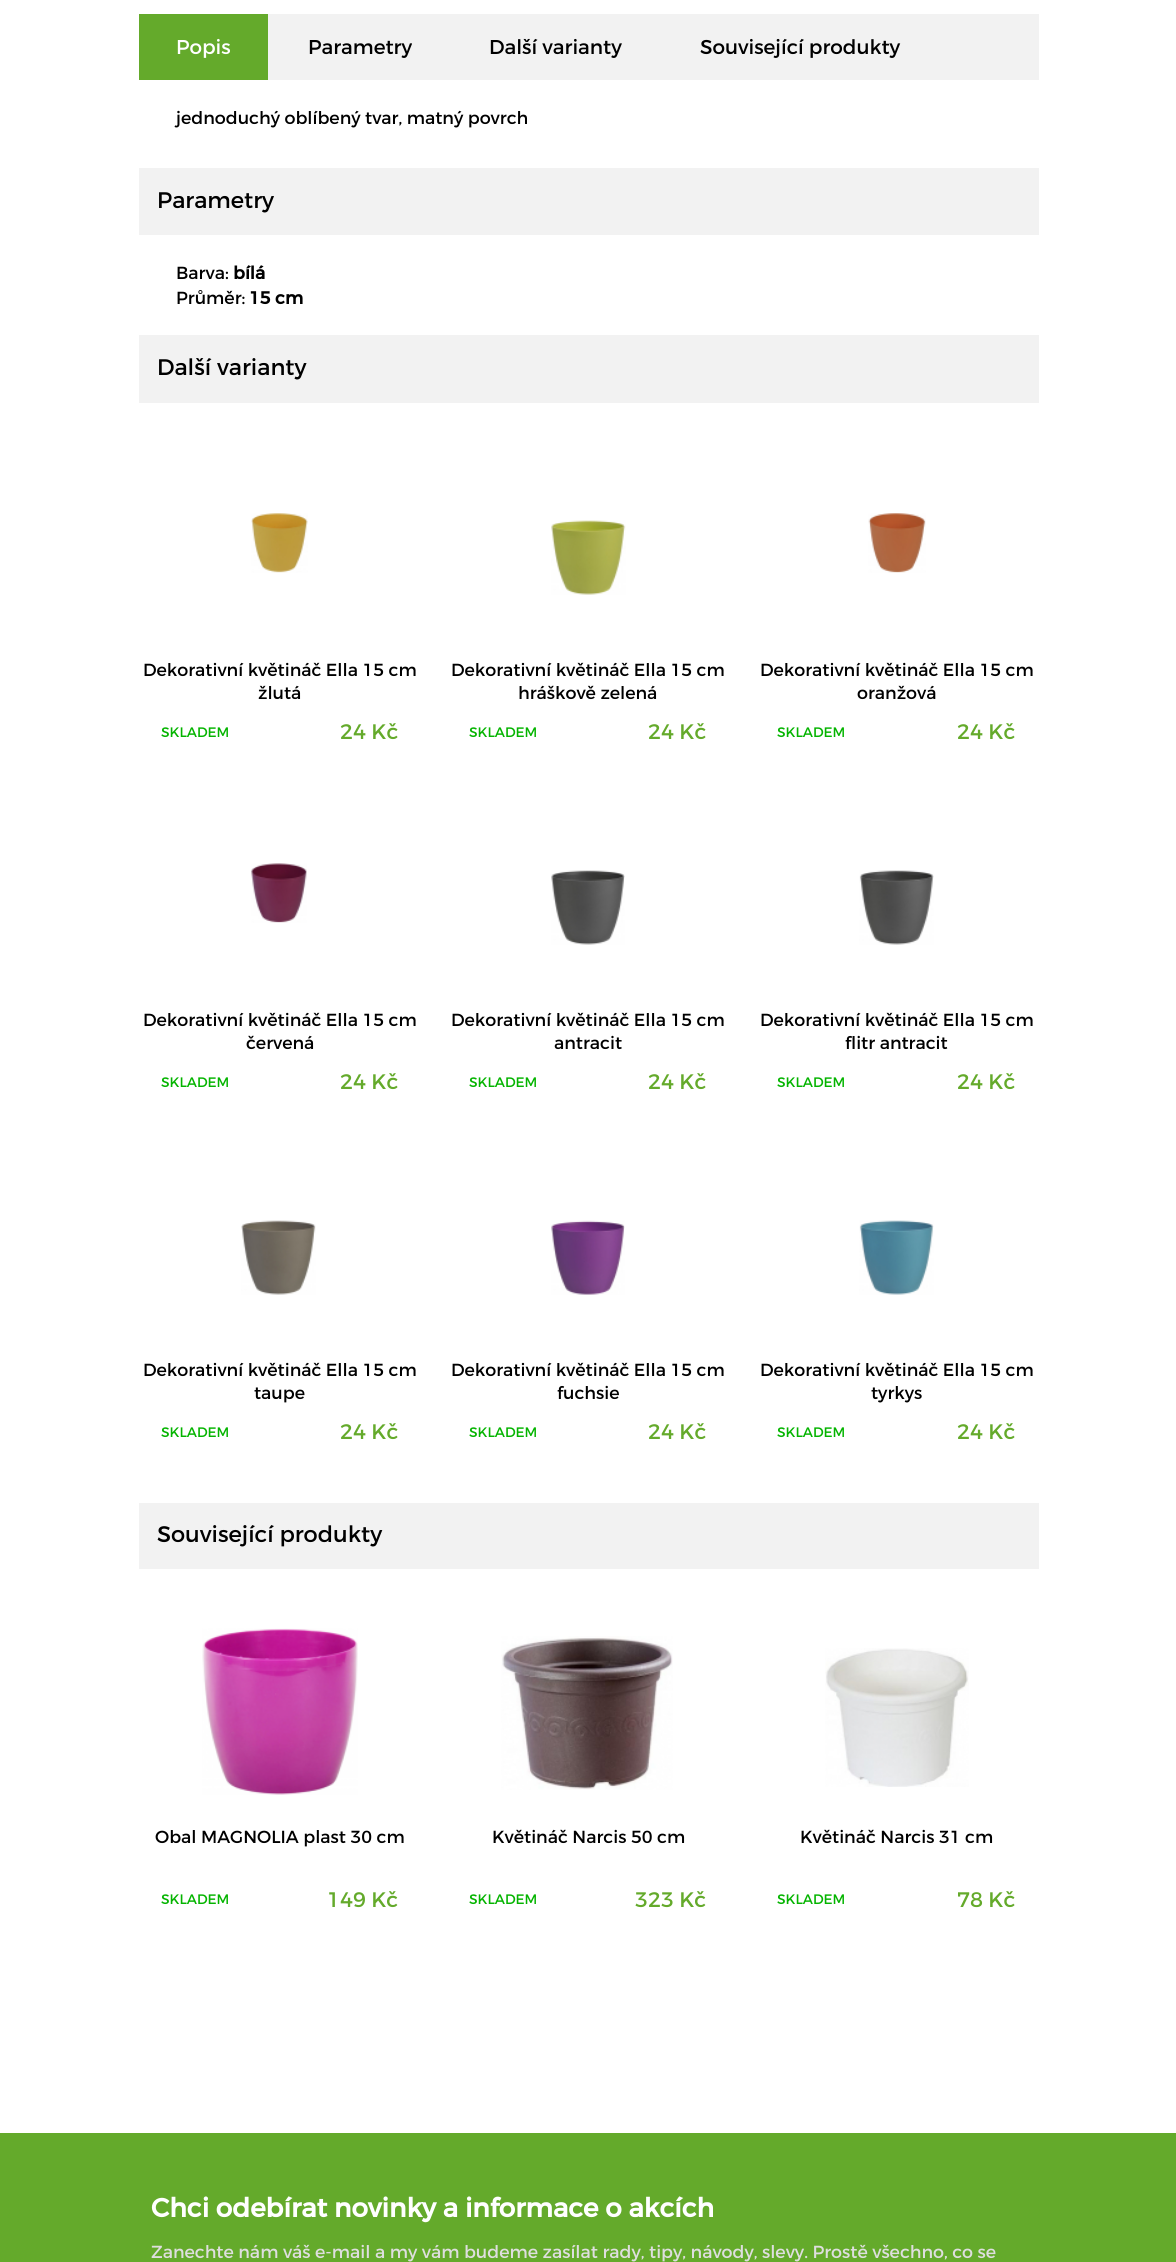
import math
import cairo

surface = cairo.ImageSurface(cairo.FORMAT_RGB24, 1176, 2262)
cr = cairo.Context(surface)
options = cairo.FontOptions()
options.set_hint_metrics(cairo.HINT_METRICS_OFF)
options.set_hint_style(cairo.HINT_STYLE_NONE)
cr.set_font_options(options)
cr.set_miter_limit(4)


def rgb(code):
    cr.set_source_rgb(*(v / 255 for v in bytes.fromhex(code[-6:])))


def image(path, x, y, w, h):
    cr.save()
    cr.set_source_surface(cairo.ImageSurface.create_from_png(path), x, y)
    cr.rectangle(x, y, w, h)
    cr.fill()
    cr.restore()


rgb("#ffffff")
cr.paint()
for x, y, w, h, color in [
    (268, 14, 771, 66, "#f2f2f2"),
    (139, 14, 129, 66, "#64aa2b"),
    (139, 168, 900, 67, "#f2f2f2"),
    (139, 335, 900, 68, "#f2f2f2"),
]:
    rgb(color)
    cr.rectangle(x, y, w, h)
    cr.fill()
image("img/1.png", 251, 513, 57, 60)
image("img/2.png", 551, 520, 75, 75)
image("img/3.png", 868, 513, 58, 60)
image("img/4.png", 251, 863, 56, 60)
image("img/5.png", 551, 870, 74, 75)
image("img/6.png", 859, 870, 75, 75)
image("img/7.png", 241, 1220, 75, 75)
image("img/8.png", 551, 1220, 74, 75)
image("img/9.png", 859, 1220, 75, 75)
cr.rectangle(139, 1503, 900, 66)
cr.fill()
image("img/10.png", 202, 1628, 156, 167)
image("img/11.png", 501, 1636, 172, 154)
image("img/12.png", 825, 1648, 144, 139)
rgb("#64aa2b")
cr.rectangle(0, 2133, 1176, 129)
cr.fill()
cr.select_font_face("Montserrat")
cr.set_font_size(20)
rgb("#ffffff")
cr.move_to(176, 54)
cr.show_text("Popis")
rgb("#000000")
for x, y, s in [
    (308, 54, "Parametry"),
    (489, 54, "Další varianty"),
    (700, 54, "Související produkty"),
]:
    cr.move_to(x, y)
    cr.show_text(s)
cr.set_font_size(17.5)
cr.move_to(176, 124)
cr.show_text("jednoduchý oblíbený tvar, matný povrch")
cr.set_font_size(22.5)
cr.move_to(157, 208)
cr.show_text("Parametry")
cr.set_font_size(17.5)
cr.move_to(176, 279)
cr.show_text("Barva:")
cr.select_font_face("Montserrat", cairo.FONT_SLANT_NORMAL, cairo.FONT_WEIGHT_BOLD)
cr.move_to(233, 279)
cr.show_text("bílá")
cr.select_font_face("Montserrat")
cr.move_to(176, 304)
cr.show_text("Průměr:")
cr.select_font_face("Montserrat", cairo.FONT_SLANT_NORMAL, cairo.FONT_WEIGHT_BOLD)
cr.move_to(249, 304)
cr.show_text("15 cm")
cr.select_font_face("Montserrat")
cr.set_font_size(22.5)
cr.move_to(157, 375)
cr.show_text("Další varianty")
cr.set_font_size(17.5)
cr.move_to(143, 676)
cr.show_text("Dekorativní květináč Ella 15 cm")
cr.move_to(258, 699)
cr.show_text("žlutá")
cr.set_font_size(13.75)
rgb("#04b400")
cr.move_to(161, 737)
cr.show_text("SKLADEM")
cr.set_font_size(21)
rgb("#64aa2b")
cr.move_to(340, 739)
cr.show_text("24 Kč")
cr.set_font_size(17.5)
rgb("#000000")
cr.move_to(451, 676)
cr.show_text("Dekorativní květináč Ella 15 cm")
cr.move_to(518, 699)
cr.show_text("hráškově zelená")
cr.set_font_size(13.75)
rgb("#04b400")
cr.move_to(469, 737)
cr.show_text("SKLADEM")
cr.set_font_size(21)
rgb("#64aa2b")
cr.move_to(648, 739)
cr.show_text("24 Kč")
cr.set_font_size(17.5)
rgb("#000000")
cr.move_to(760, 676)
cr.show_text("Dekorativní květináč Ella 15 cm")
cr.move_to(857, 699)
cr.show_text("oranžová")
cr.set_font_size(13.75)
rgb("#04b400")
cr.move_to(777, 737)
cr.show_text("SKLADEM")
cr.set_font_size(21)
rgb("#64aa2b")
cr.move_to(957, 739)
cr.show_text("24 Kč")
cr.set_font_size(17.5)
rgb("#000000")
cr.move_to(143, 1026)
cr.show_text("Dekorativní květináč Ella 15 cm")
cr.move_to(246, 1049)
cr.show_text("červená")
cr.set_font_size(13.75)
rgb("#04b400")
cr.move_to(161, 1087)
cr.show_text("SKLADEM")
cr.set_font_size(21)
rgb("#64aa2b")
cr.move_to(340, 1089)
cr.show_text("24 Kč")
cr.set_font_size(17.5)
rgb("#000000")
cr.move_to(451, 1026)
cr.show_text("Dekorativní květináč Ella 15 cm")
cr.move_to(554, 1049)
cr.show_text("antracit")
cr.set_font_size(13.75)
rgb("#04b400")
cr.move_to(469, 1087)
cr.show_text("SKLADEM")
cr.set_font_size(21)
rgb("#64aa2b")
cr.move_to(648, 1089)
cr.show_text("24 Kč")
cr.set_font_size(17.5)
rgb("#000000")
cr.move_to(760, 1026)
cr.show_text("Dekorativní květináč Ella 15 cm")
cr.move_to(845, 1049)
cr.show_text("flitr antracit")
cr.set_font_size(13.75)
rgb("#04b400")
cr.move_to(777, 1087)
cr.show_text("SKLADEM")
cr.set_font_size(21)
rgb("#64aa2b")
cr.move_to(957, 1089)
cr.show_text("24 Kč")
cr.set_font_size(17.5)
rgb("#000000")
cr.move_to(143, 1376)
cr.show_text("Dekorativní květináč Ella 15 cm")
cr.move_to(254, 1399)
cr.show_text("taupe")
cr.set_font_size(13.75)
rgb("#04b400")
cr.move_to(161, 1437)
cr.show_text("SKLADEM")
cr.set_font_size(21)
rgb("#64aa2b")
cr.move_to(340, 1439)
cr.show_text("24 Kč")
cr.set_font_size(17.5)
rgb("#000000")
cr.move_to(451, 1376)
cr.show_text("Dekorativní květináč Ella 15 cm")
cr.move_to(557, 1399)
cr.show_text("fuchsie")
cr.set_font_size(13.75)
rgb("#04b400")
cr.move_to(469, 1437)
cr.show_text("SKLADEM")
cr.set_font_size(21)
rgb("#64aa2b")
cr.move_to(648, 1439)
cr.show_text("24 Kč")
cr.set_font_size(17.5)
rgb("#000000")
cr.move_to(760, 1376)
cr.show_text("Dekorativní květináč Ella 15 cm")
cr.move_to(871, 1399)
cr.show_text("tyrkys")
cr.set_font_size(13.75)
rgb("#04b400")
cr.move_to(777, 1437)
cr.show_text("SKLADEM")
cr.set_font_size(21)
rgb("#64aa2b")
cr.move_to(957, 1439)
cr.show_text("24 Kč")
cr.set_font_size(22.5)
rgb("#000000")
cr.move_to(157, 1542)
cr.show_text("Související produkty")
cr.set_font_size(17.5)
cr.move_to(155, 1843)
cr.show_text("Obal MAGNOLIA plast 30 cm")
cr.set_font_size(13.75)
rgb("#04b400")
cr.move_to(161, 1904)
cr.show_text("SKLADEM")
cr.set_font_size(21)
rgb("#64aa2b")
cr.move_to(327, 1907)
cr.show_text("149 Kč")
cr.set_font_size(17.5)
rgb("#000000")
cr.move_to(492, 1843)
cr.show_text("Květináč Narcis 50 cm")
cr.set_font_size(13.75)
rgb("#04b400")
cr.move_to(469, 1904)
cr.show_text("SKLADEM")
cr.set_font_size(21)
rgb("#64aa2b")
cr.move_to(635, 1907)
cr.show_text("323 Kč")
cr.set_font_size(17.5)
rgb("#000000")
cr.move_to(800, 1843)
cr.show_text("Květináč Narcis 31 cm")
cr.set_font_size(13.75)
rgb("#04b400")
cr.move_to(777, 1904)
cr.show_text("SKLADEM")
cr.set_font_size(21)
rgb("#64aa2b")
cr.move_to(957, 1907)
cr.show_text("78 Kč")
cr.select_font_face("Montserrat", cairo.FONT_SLANT_NORMAL, cairo.FONT_WEIGHT_BOLD)
cr.set_font_size(26.25)
rgb("#ffffff")
cr.move_to(151, 2217)
cr.show_text("Chci odebírat novinky a informace o akcích")
cr.select_font_face("Montserrat")
cr.set_font_size(17.5)
rgb("#dedede")
cr.move_to(151, 2258)
cr.show_text("Zanechte nám váš e-mail a my vám budeme zasílat rady, tipy, návody, slevy. Prostě všechno, co se")
surface.write_to_png("page.png")
